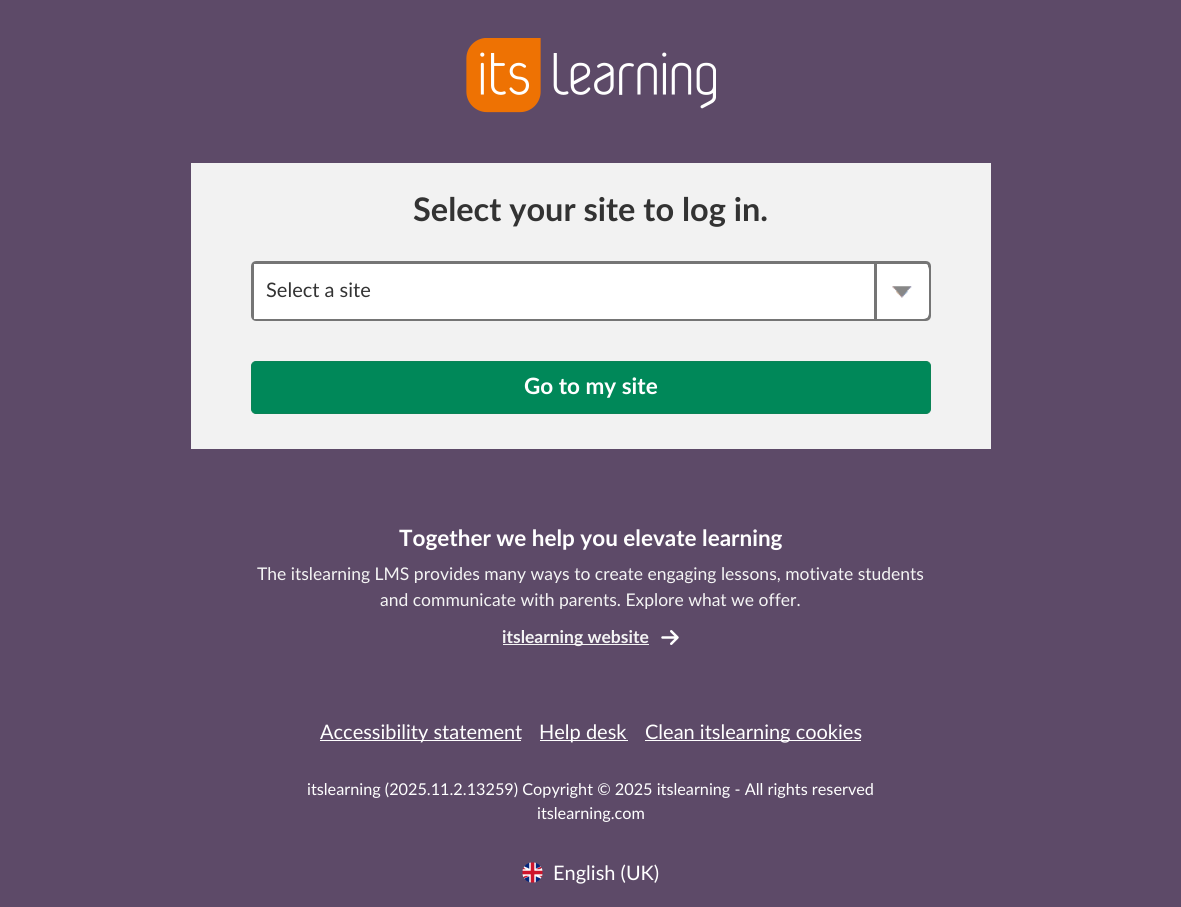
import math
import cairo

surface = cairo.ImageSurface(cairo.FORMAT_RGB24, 1181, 907)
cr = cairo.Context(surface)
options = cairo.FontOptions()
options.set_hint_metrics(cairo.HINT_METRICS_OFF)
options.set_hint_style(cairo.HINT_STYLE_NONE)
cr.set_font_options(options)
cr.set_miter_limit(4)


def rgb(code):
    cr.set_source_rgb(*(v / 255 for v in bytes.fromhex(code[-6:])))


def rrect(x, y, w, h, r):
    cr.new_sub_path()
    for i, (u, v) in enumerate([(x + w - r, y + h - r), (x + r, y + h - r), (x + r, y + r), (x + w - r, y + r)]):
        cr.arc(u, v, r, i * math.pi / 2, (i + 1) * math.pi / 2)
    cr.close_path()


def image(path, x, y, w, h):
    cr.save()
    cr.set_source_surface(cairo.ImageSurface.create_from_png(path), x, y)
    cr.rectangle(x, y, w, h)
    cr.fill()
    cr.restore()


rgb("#5d4a68")
cr.paint()
image("img/1.png", 466, 38, 250, 75)
rgb("#f2f2f2")
cr.rectangle(191, 163, 800, 286)
cr.fill()
rgb("#ffffff")
rrect(252.5, 262.5, 677, 57, 3.5)
cr.fill_preserve()
rgb("#757575")
cr.set_line_width(3)
cr.stroke()
rgb("#ffffff")
cr.rectangle(254, 264, 620, 55)
cr.fill()
cr.new_path()
cr.move_to(874, 264)
cr.line_to(923, 264)
cr.curve_to(926.5, 264, 929, 266.5, 929, 270)
cr.line_to(929, 313)
cr.curve_to(929, 316.5, 926.5, 319, 923, 319)
cr.line_to(874, 319)
cr.close_path()
cr.fill()
image("img/2.png", 892, 286, 20, 12)
rgb("#757575")
cr.rectangle(874, 264, 3, 55)
cr.fill()
rgb("#008859")
rrect(251.5, 361.5, 679, 52, 4.5)
cr.fill_preserve()
rgb("#0b8356")
cr.set_line_width(1)
cr.stroke()
image("img/3.png", 661, 630, 18, 15)
for x, y, w, h, color in [
    (503, 644, 146, 1, "#f4f4f4"),
    (320, 740, 201, 1, "#ffffff"),
    (540, 740, 88, 1, "#ffffff"),
    (645, 740, 216, 1, "#ffffff"),
]:
    rgb(color)
    cr.rectangle(x, y, w, h)
    cr.fill()
image("img/4.png", 522, 862, 21, 21)
cr.select_font_face("Lato", cairo.FONT_SLANT_NORMAL, cairo.FONT_WEIGHT_BOLD)
cr.set_font_size(32.5)
rgb("#333333")
cr.move_to(413, 221)
cr.show_text("Select your site to log in.")
cr.select_font_face("Lato")
cr.set_font_size(20)
cr.move_to(266, 297)
cr.show_text("Select a site")
cr.select_font_face("Lato", cairo.FONT_SLANT_NORMAL, cairo.FONT_WEIGHT_BOLD)
cr.set_font_size(22.5)
rgb("#ffffff")
cr.move_to(524, 394)
cr.show_text("Go to my site")
cr.move_to(399, 546)
cr.show_text("Together we help you elevate learning")
cr.select_font_face("Lato")
cr.set_font_size(17.5)
rgb("#f4f4f4")
cr.move_to(257, 580)
cr.show_text("The itslearning LMS provides many ways to create engaging lessons, motivate students")
cr.move_to(380, 606)
cr.show_text("and communicate with parents. Explore what we offer.")
cr.select_font_face("Lato", cairo.FONT_SLANT_NORMAL, cairo.FONT_WEIGHT_BOLD)
cr.move_to(502, 643)
cr.show_text("itslearning website")
cr.select_font_face("Lato")
cr.set_font_size(20)
rgb("#ffffff")
for x, y, s in [
    (320, 739, "Accessibility statement"),
    (539, 739, "Help desk"),
    (645, 739, "Clean itslearning cookies"),
]:
    cr.move_to(x, y)
    cr.show_text(s)
cr.set_font_size(16.25)
cr.move_to(307, 795)
cr.show_text("itslearning (2025.11.2.13259) Copyright © 2025 itslearning - All rights reserved")
cr.move_to(537, 819)
cr.show_text("itslearning.com")
cr.set_font_size(20)
cr.move_to(553, 880)
cr.show_text("English (UK)")
surface.write_to_png("page.png")
